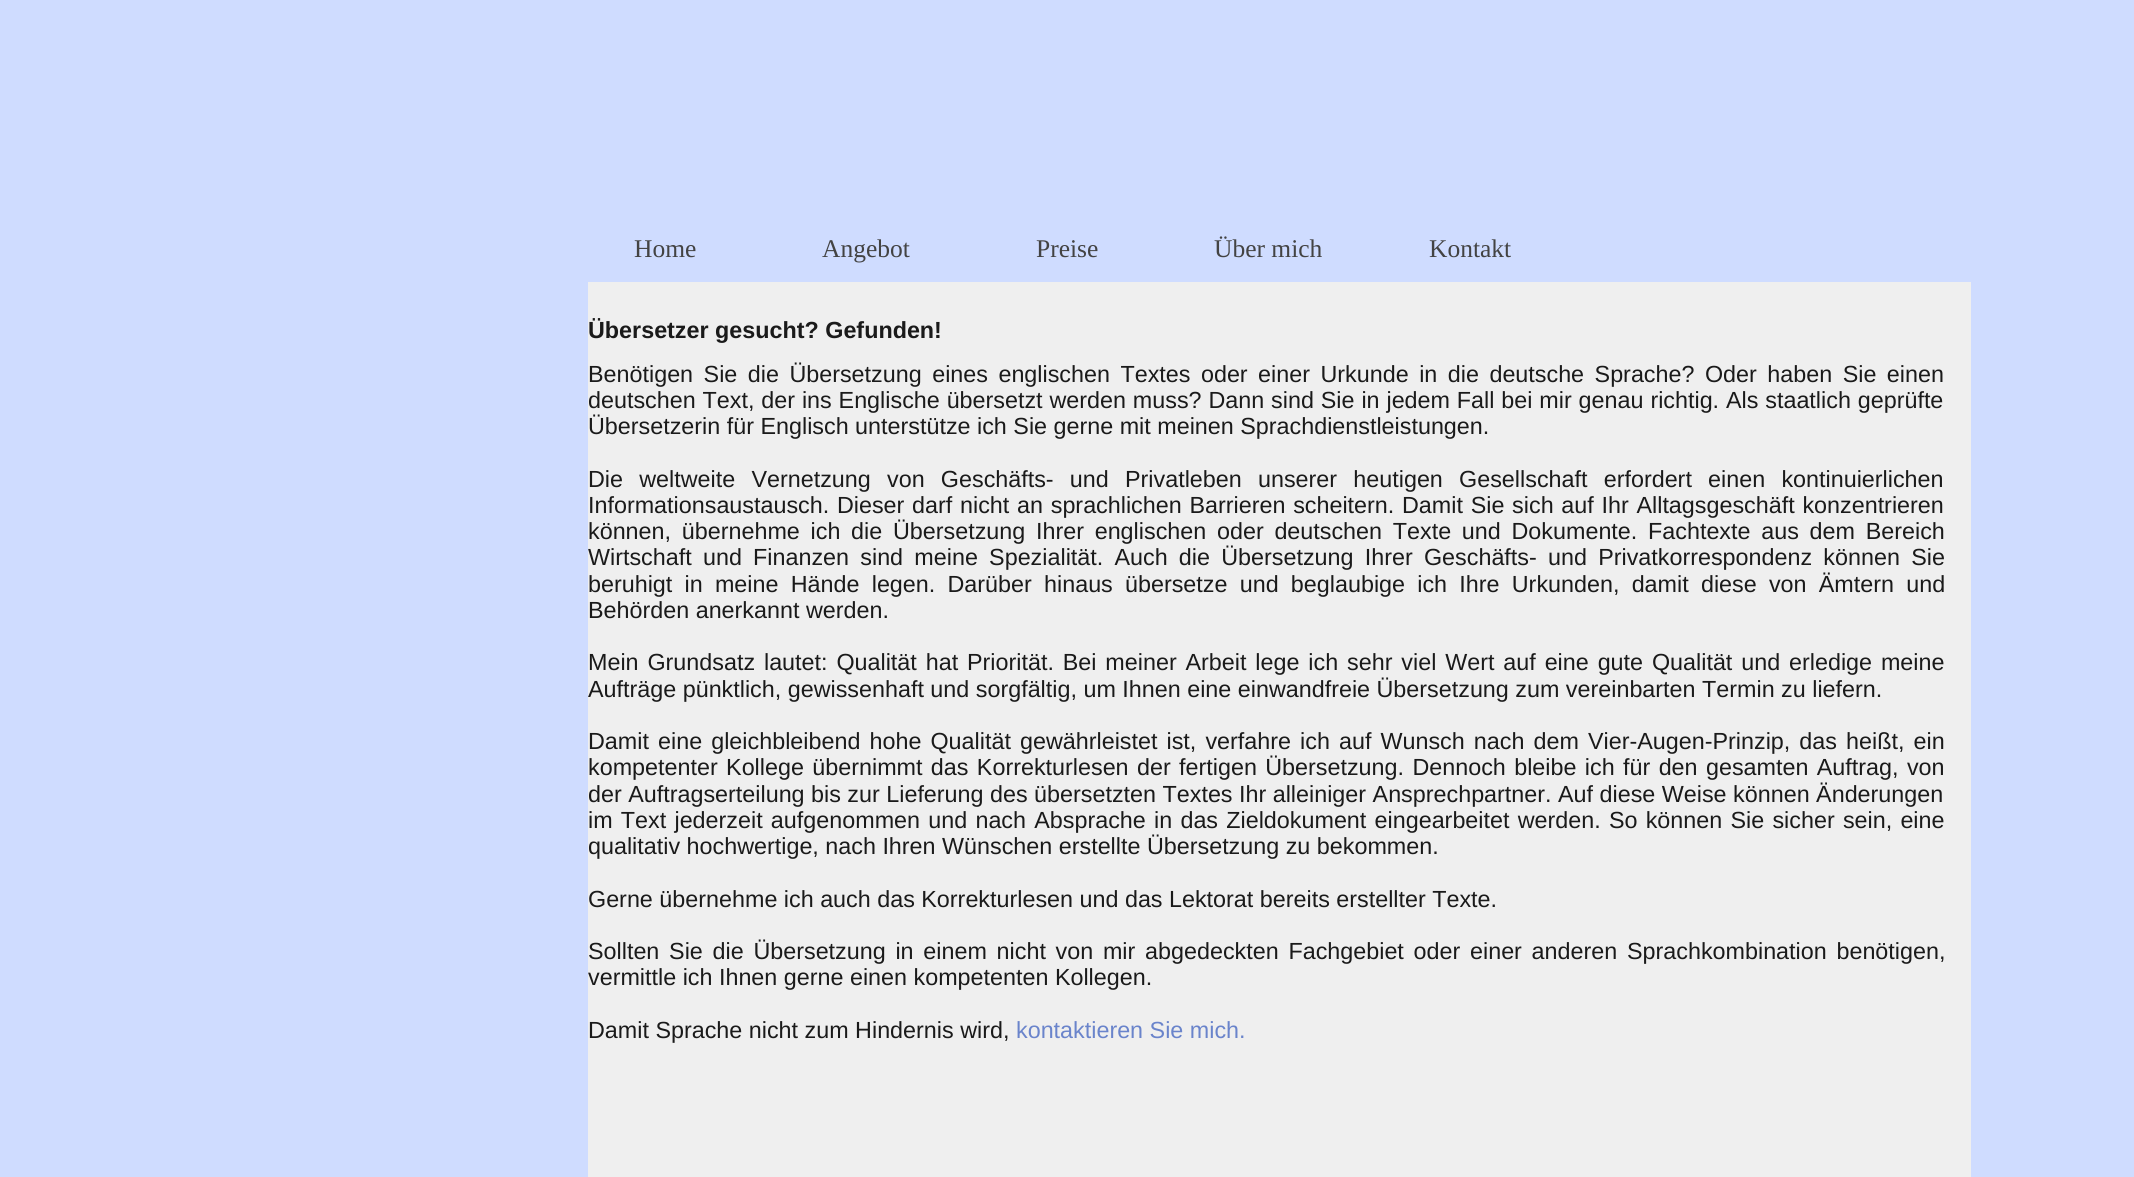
import math
import cairo

surface = cairo.ImageSurface(cairo.FORMAT_RGB24, 2134, 1177)
cr = cairo.Context(surface)
options = cairo.FontOptions()
options.set_hint_metrics(cairo.HINT_METRICS_OFF)
options.set_hint_style(cairo.HINT_STYLE_NONE)
cr.set_font_options(options)
cr.set_miter_limit(4)


def rgb(code):
    cr.set_source_rgb(*(v / 255 for v in bytes.fromhex(code[-6:])))


def tracked(x, y, s, letter, word):
    cr.move_to(x, y)
    for ch in s:
        cr.show_text(ch)
        cr.rel_move_to(letter + word * (ch == ' '), 0)


rgb("#cfdcff")
cr.paint()
rgb("#efefef")
cr.rectangle(588, 282, 1383, 895)
cr.fill()
cr.select_font_face("Liberation Serif")
cr.set_font_size(25.5)
rgb("#434343")
for x, y, s in [
    (634, 257, "Home"),
    (822, 257, "Angebot"),
    (1036, 257, "Preise"),
    (1214, 257, "Über mich"),
    (1429, 257, "Kontakt"),
]:
    cr.move_to(x, y)
    cr.show_text(s)
cr.select_font_face("Liberation Sans", cairo.FONT_SLANT_NORMAL, cairo.FONT_WEIGHT_BOLD)
cr.set_font_size(23.33)
rgb("#1a1a1a")
cr.move_to(588, 338)
cr.show_text("Übersetzer gesucht? Gefunden!")
cr.select_font_face("Liberation Sans")
tracked(588, 382, "Benötigen Sie die Übersetzung eines englischen Textes oder einer Urkunde in die deutsche Sprache? Oder haben Sie einen", 0, 4)
tracked(588, 408, "deutschen Text, der ins Englische übersetzt werden muss? Dann sind Sie in jedem Fall bei mir genau richtig. Als staatlich geprüfte", 0, 0.4)
cr.move_to(588, 434)
cr.show_text("Übersetzerin für Englisch unterstütze ich Sie gerne mit meinen Sprachdienstleistungen.")
tracked(588, 487, "Die weltweite Vernetzung von Geschäfts- und Privatleben unserer heutigen Gesellschaft erfordert einen kontinuierlichen", 0, 9.75)
tracked(588, 513, "Informationsaustausch. Dieser darf nicht an sprachlichen Barrieren scheitern. Damit Sie sich auf Ihr Alltagsgeschäft konzentrieren", 0, 1.25)
tracked(588, 539, "können, übernehme ich die Übersetzung Ihrer englischen oder deutschen Texte und Dokumente. Fachtexte aus dem Bereich", 0, 4.25)
tracked(588, 565, "Wirtschaft und Finanzen sind meine Spezialität. Auch die Übersetzung Ihrer Geschäfts- und Privatkorrespondenz können Sie", 0, 4.75)
tracked(588, 592, "beruhigt in meine Hände legen. Darüber hinaus übersetze und beglaubige ich Ihre Urkunden, damit diese von Ämtern und", 0, 5.75)
cr.move_to(588, 618)
cr.show_text("Behörden anerkannt werden.")
tracked(588, 670, "Mein Grundsatz lautet: Qualität hat Priorität. Bei meiner Arbeit lege ich sehr viel Wert auf eine gute Qualität und erledige meine", 0, 2.4)
cr.move_to(588, 697)
cr.show_text("Aufträge pünktlich, gewissenhaft und sorgfältig, um Ihnen eine einwandfreie Übersetzung zum vereinbarten Termin zu liefern.")
tracked(588, 749, "Damit eine gleichbleibend hohe Qualität gewährleistet ist, verfahre ich auf Wunsch nach dem Vier-Augen-Prinzip, das heißt, ein", 0, 2.6)
tracked(588, 775, "kompetenter Kollege übernimmt das Korrekturlesen der fertigen Übersetzung. Dennoch bleibe ich für den gesamten Auftrag, von", 0, 1.9)
cr.move_to(588, 802)
cr.show_text("der Auftragserteilung bis zur Lieferung des übersetzten Textes Ihr alleiniger Ansprechpartner. Auf diese Weise können Änderungen")
tracked(588, 828, "im Text jederzeit aufgenommen und nach Absprache in das Zieldokument eingearbeitet werden. So können Sie sicher sein, eine", 0, 1.75)
cr.move_to(588, 854)
cr.show_text("qualitativ hochwertige, nach Ihren Wünschen erstellte Übersetzung zu bekommen.")
cr.move_to(588, 907)
cr.show_text("Gerne übernehme ich auch das Korrekturlesen und das Lektorat bereits erstellter Texte.")
tracked(588, 959, "Sollten Sie die Übersetzung in einem nicht von mir abgedeckten Fachgebiet oder einer anderen Sprachkombination benötigen,", 0, 3.25)
cr.move_to(588, 985)
cr.show_text("vermittle ich Ihnen gerne einen kompetenten Kollegen.")
cr.move_to(588, 1038)
cr.show_text("Damit Sprache nicht zum Hindernis wird,")
rgb("#6a84cb")
cr.move_to(1016, 1038)
cr.show_text("kontaktieren Sie mich.")
surface.write_to_png("page.png")
